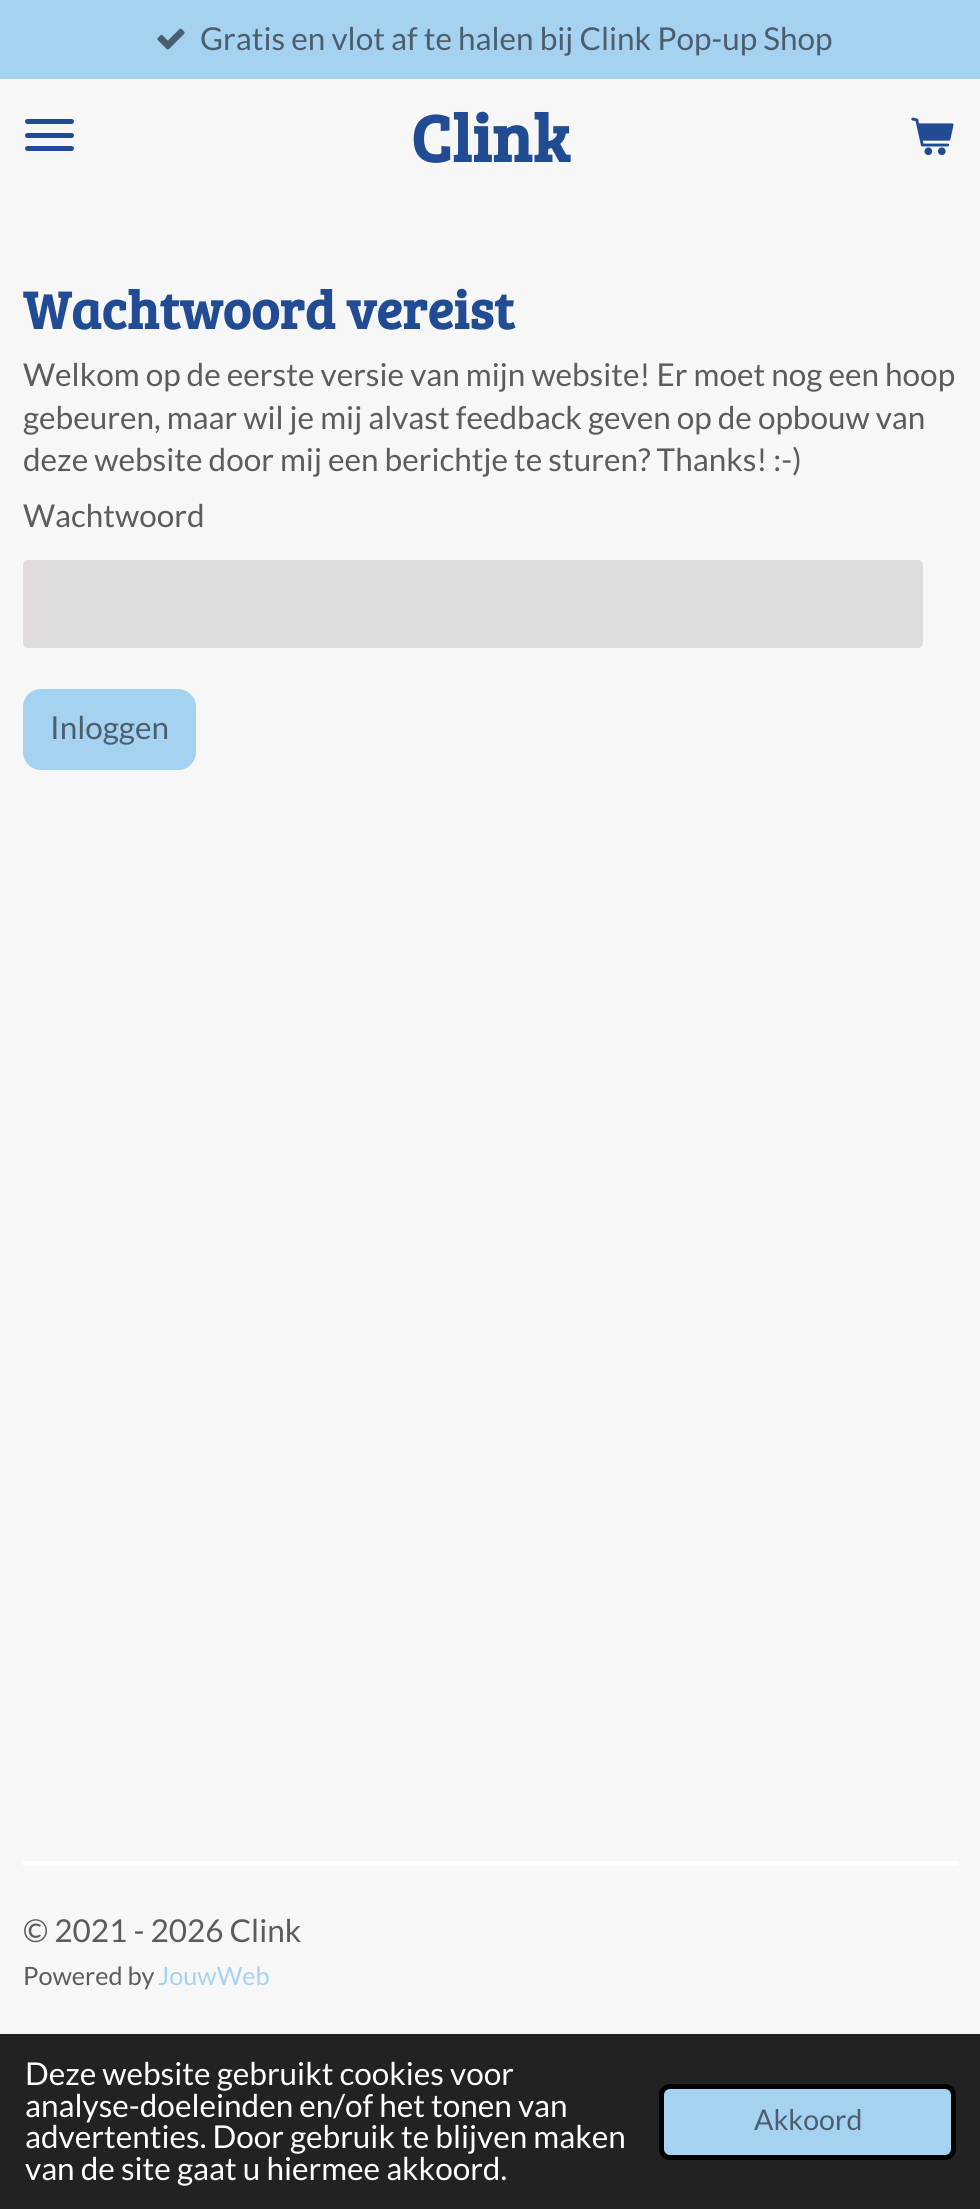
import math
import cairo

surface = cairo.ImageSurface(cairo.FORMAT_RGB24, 980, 2209)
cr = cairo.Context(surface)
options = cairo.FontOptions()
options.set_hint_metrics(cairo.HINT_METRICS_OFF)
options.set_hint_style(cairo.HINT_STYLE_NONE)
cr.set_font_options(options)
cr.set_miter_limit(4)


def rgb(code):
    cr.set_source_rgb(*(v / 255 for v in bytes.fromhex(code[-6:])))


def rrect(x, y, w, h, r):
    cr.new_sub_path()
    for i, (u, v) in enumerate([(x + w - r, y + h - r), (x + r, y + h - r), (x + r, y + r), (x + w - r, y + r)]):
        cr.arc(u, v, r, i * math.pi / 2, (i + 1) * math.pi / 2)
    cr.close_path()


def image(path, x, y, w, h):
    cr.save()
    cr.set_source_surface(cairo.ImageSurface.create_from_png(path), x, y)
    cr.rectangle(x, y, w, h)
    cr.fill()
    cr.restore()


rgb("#f8f7f7")
cr.paint()
rgb("#a6d2f2")
cr.rectangle(0, 0, 980, 79)
cr.fill()
image("img/1.png", 157, 28, 28, 22)
rgb("#214b92")
rrect(25, 133, 49, 5, 2.5)
cr.fill()
rrect(25, 119, 49, 5, 2.5)
cr.fill()
rrect(25, 146, 49, 5, 2.5)
cr.fill()
image("img/2.png", 911, 117, 43, 39)
rgb("#e0dcdc")
rrect(23, 560, 900, 88, 5)
cr.fill()
rgb("#a6d2f2")
rrect(23, 689, 173, 81, 18)
cr.fill()
rgb("#ffffff")
cr.rectangle(23, 1861, 936, 5)
cr.fill()
rgb("#222222")
cr.rectangle(0, 2034, 980, 175)
cr.fill()
rgb("#a6d2f2")
rrect(661.5, 2086.5, 292, 71, 8.5)
cr.fill_preserve()
rgb("#000000")
cr.set_line_width(5)
cr.stroke()
cr.select_font_face("Lato")
cr.set_font_size(31.5)
rgb("#4b5e6d")
cr.move_to(200, 50)
cr.show_text("Gratis en vlot af te halen bij Clink Pop-up Shop")
cr.select_font_face("Bree Serif", cairo.FONT_SLANT_NORMAL, cairo.FONT_WEIGHT_BOLD)
cr.set_font_size(67.5)
rgb("#214b92")
cr.move_to(411, 162)
cr.show_text("Clink")
cr.set_font_size(54)
cr.move_to(23, 329)
cr.show_text("Wachtwoord vereist")
cr.select_font_face("Lato")
cr.set_font_size(31.5)
rgb("#5c5c5c")
for x, y, s in [
    (23, 386, "Welkom op de eerste versie van mijn website! Er moet nog een hoop"),
    (23, 429, "gebeuren, maar wil je mij alvast feedback geven op de opbouw van"),
    (23, 471, "deze website door mij een berichtje te sturen? Thanks! :-)"),
    (23, 527, "Wachtwoord"),
]:
    cr.move_to(x, y)
    cr.show_text(s)
rgb("#4b5e6d")
cr.move_to(50, 739)
cr.show_text("Inloggen")
rgb("#5c5c5c")
cr.move_to(23, 1942)
cr.show_text("© 2021 - 2026 Clink")
cr.set_font_size(25.25)
cr.move_to(23, 1985)
cr.show_text("Powered by")
rgb("#a6d2f2")
cr.move_to(158, 1985)
cr.show_text("JouwWeb")
cr.set_font_size(31.5)
rgb("#ffffff")
for x, y, s in [
    (25, 2085, "Deze website gebruikt cookies voor"),
    (25, 2117, "analyse-doeleinden en/of het tonen van"),
    (25, 2148, "advertenties. Door gebruik te blijven maken"),
    (25, 2180, "van de site gaat u hiermee akkoord."),
]:
    cr.move_to(x, y)
    cr.show_text(s)
cr.set_font_size(28.5)
rgb("#4b5e6d")
cr.move_to(754, 2130)
cr.show_text("Akkoord")
surface.write_to_png("page.png")
